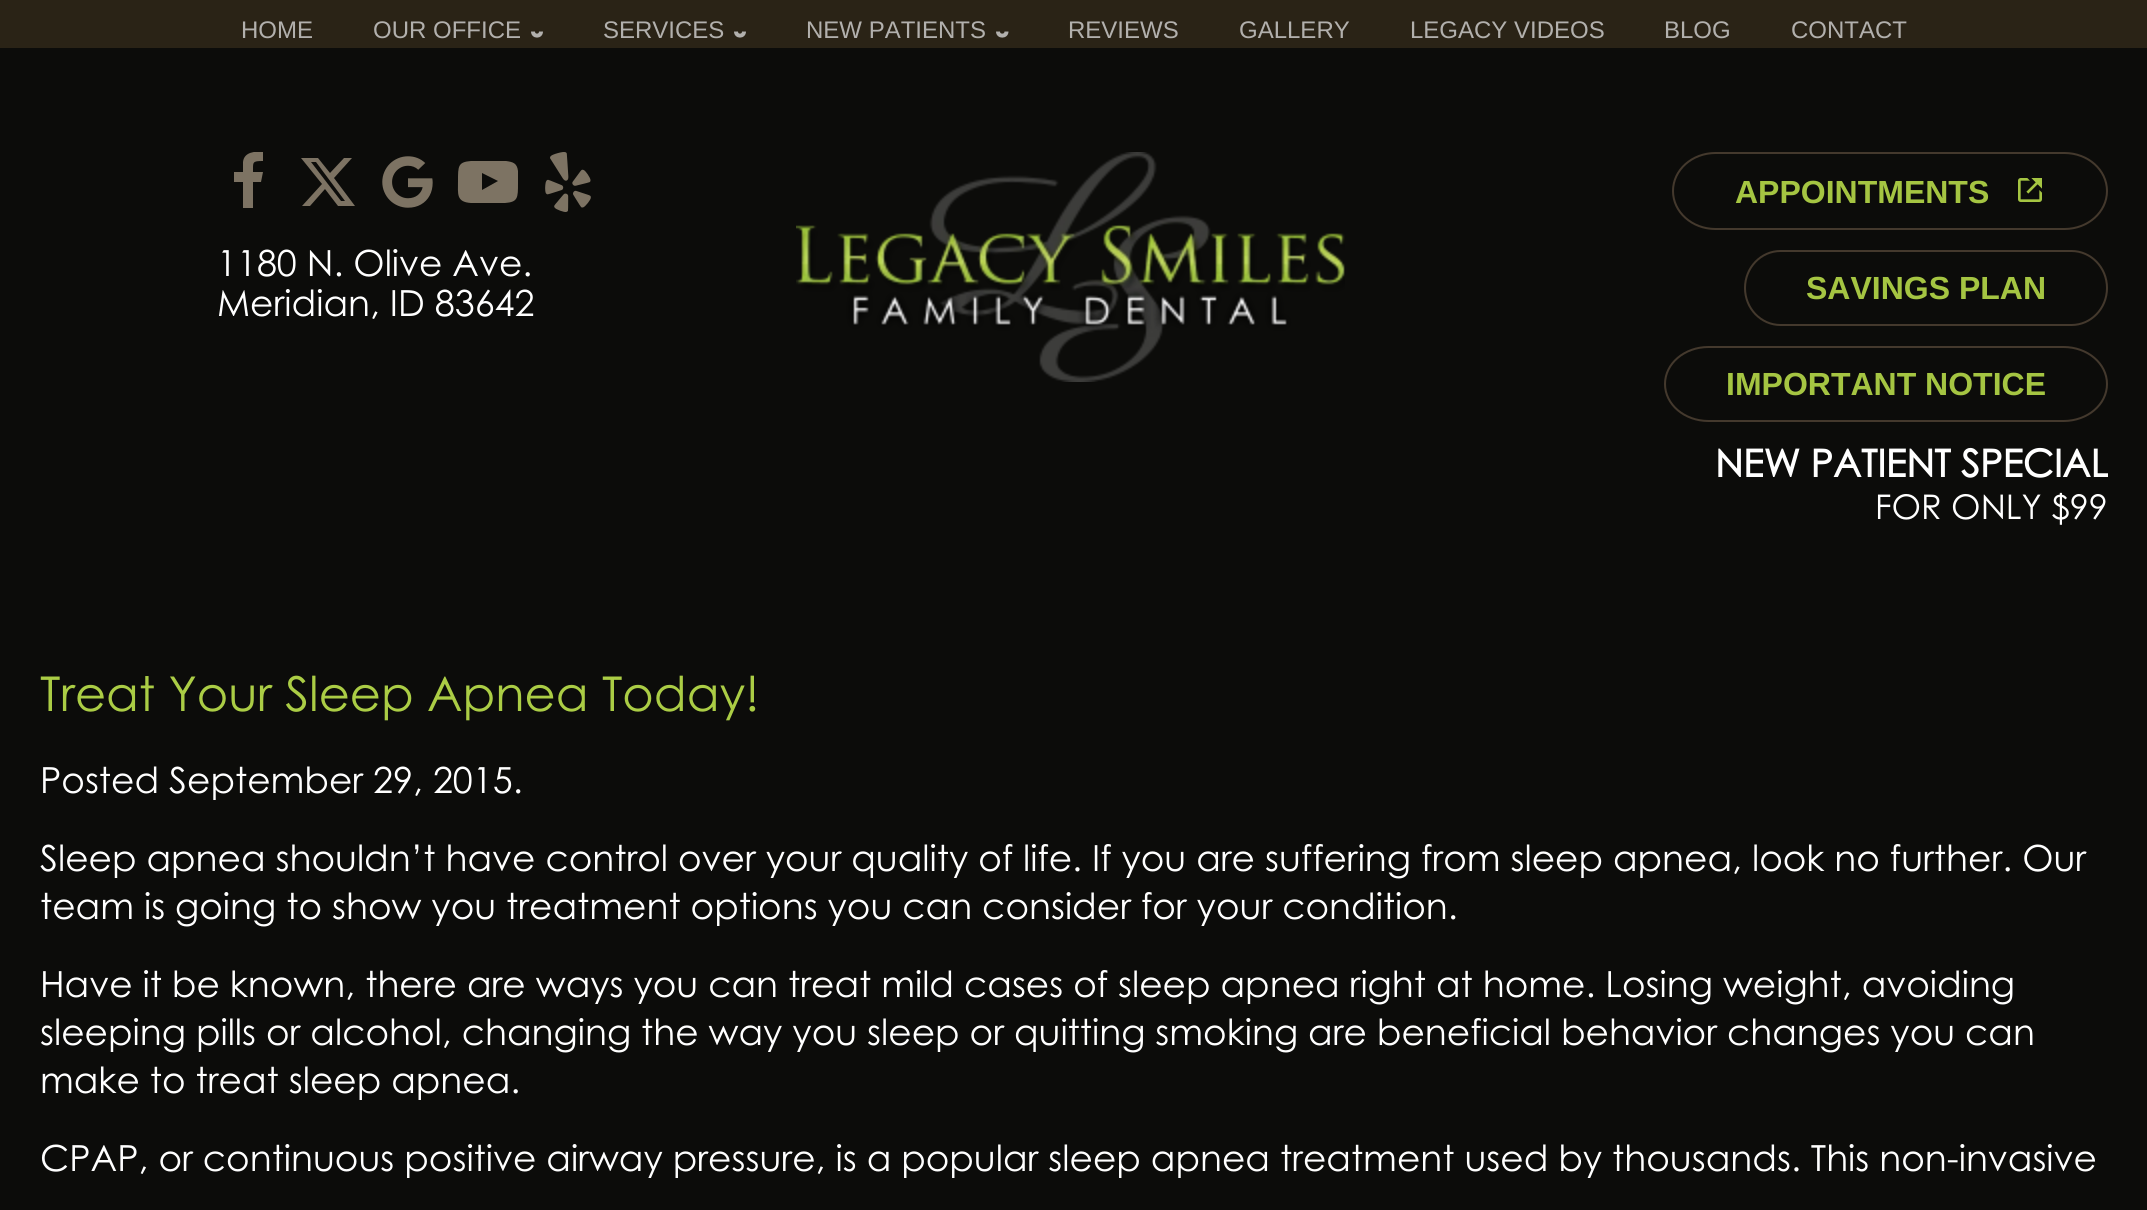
import math
import cairo

surface = cairo.ImageSurface(cairo.FORMAT_RGB24, 2147, 1210)
cr = cairo.Context(surface)
options = cairo.FontOptions()
options.set_hint_metrics(cairo.HINT_METRICS_OFF)
options.set_hint_style(cairo.HINT_STYLE_NONE)
cr.set_font_options(options)
cr.set_miter_limit(4)


def rgb(code):
    cr.set_source_rgb(*(v / 255 for v in bytes.fromhex(code[-6:])))


def image(path, x, y, w, h):
    cr.save()
    cr.set_source_surface(cairo.ImageSurface.create_from_png(path), x, y)
    cr.rectangle(x, y, w, h)
    cr.fill()
    cr.restore()


rgb("#0c0c0a")
cr.paint()
rgb("#2a2316")
cr.rectangle(0, 0, 2147, 48)
cr.fill()
cr.new_path()
cr.move_to(541, 31.5)
cr.curve_to(541, 37, 533, 37, 533, 31.5)
rgb("#b2b0ad")
cr.set_line_width(4)
cr.stroke()
cr.new_path()
cr.move_to(744, 31.5)
cr.curve_to(744, 37, 736, 37, 736, 31.5)
cr.stroke()
cr.new_path()
cr.move_to(1006.5, 31.5)
cr.curve_to(1006.5, 37, 998, 37, 998, 31.5)
cr.stroke()
cr.save()
cr.rectangle(218, 152, 60, 60)
cr.clip()
rgb("#7d7363")
cr.new_path()
cr.move_to(263, 152)
cr.line_to(263, 161)
cr.curve_to(252, 161, 253, 162, 253, 172)
cr.line_to(263, 172)
cr.line_to(261, 182)
cr.line_to(253, 182)
cr.line_to(253, 208)
cr.line_to(243, 208)
cr.line_to(243, 182)
cr.line_to(234, 182)
cr.line_to(234, 172)
cr.line_to(243, 172)
cr.line_to(243, 162)
cr.curve_to(244, 152, 255, 151, 263, 152)
cr.close_path()
cr.fill()
cr.restore()
rgb("#7d7363")
cr.new_path()
cr.move_to(344, 158)
cr.line_to(352, 158)
cr.line_to(334, 178)
cr.line_to(355, 206)
cr.line_to(338, 206)
cr.line_to(325, 189)
cr.line_to(310, 206)
cr.line_to(302, 206)
cr.line_to(322, 184)
cr.line_to(301, 158)
cr.line_to(318, 158)
cr.line_to(330, 173)
cr.close_path()
cr.move_to(341, 201)
cr.line_to(345, 201)
cr.line_to(316, 162)
cr.line_to(311, 162)
cr.close_path()
cr.fill()
image("img/1.png", 382, 156, 51, 52)
cr.new_path()
cr.move_to(482, 190)
cr.line_to(498, 181)
cr.line_to(482, 173)
cr.close_path()
cr.move_to(488, 161)
cr.line_to(506, 161)
cr.curve_to(513, 162, 517, 163, 518, 171)
cr.line_to(518, 183)
cr.curve_to(518, 198, 518, 202, 505, 203)
cr.line_to(488, 203)
cr.line_to(471, 203)
cr.curve_to(456, 202, 458, 194, 458, 181)
cr.curve_to(458, 166, 458, 162, 471, 161)
cr.close_path()
cr.fill()
image("img/2.png", 545, 152, 46, 60)
image("img/3.png", 796, 152, 549, 230)
cr.new_path()
cr.move_to(1715.5, 153)
cr.line_to(2064.5, 153)
cr.curve_to(2088, 153, 2107, 170, 2107, 191)
cr.curve_to(2107, 212, 2088, 229, 2064.5, 229)
cr.line_to(1715.5, 229)
cr.curve_to(1692, 229, 1673, 212, 1673, 191)
cr.curve_to(1673, 170, 1692, 153, 1715.5, 153)
cr.close_path()
rgb("#44392d")
cr.set_line_width(2)
cr.stroke()
image("img/4.png", 2018, 178, 24, 24)
cr.new_path()
cr.move_to(1780.5, 251)
cr.line_to(2071.5, 251)
cr.curve_to(2091, 251, 2107, 267.5, 2107, 288)
cr.curve_to(2107, 308.5, 2091, 325, 2071.5, 325)
cr.line_to(1780.5, 325)
cr.curve_to(1761, 325, 1745, 308.5, 1745, 288)
cr.curve_to(1745, 267.5, 1761, 251, 1780.5, 251)
cr.close_path()
cr.stroke()
cr.new_path()
cr.move_to(1708.5, 347)
cr.line_to(2063.5, 347)
cr.curve_to(2087.5, 347, 2107, 363.5, 2107, 384)
cr.curve_to(2107, 404.5, 2087.5, 421, 2063.5, 421)
cr.line_to(1708.5, 421)
cr.curve_to(1684.5, 421, 1665, 404.5, 1665, 384)
cr.curve_to(1665, 363.5, 1684.5, 347, 1708.5, 347)
cr.close_path()
cr.stroke()
cr.select_font_face("Liberation Sans")
cr.set_font_size(24)
rgb("#b2b0ad")
for x, y, s in [
    (241, 38, "HOME"),
    (373, 38, "OUR OFFICE"),
    (603, 38, "SERVICES"),
    (806, 38, "NEW PATIENTS"),
    (1068, 38, "REVIEWS"),
    (1239, 38, "GALLERY"),
    (1410, 38, "LEGACY VIDEOS"),
    (1664, 38, "BLOG"),
    (1791, 38, "CONTACT"),
]:
    cr.move_to(x, y)
    cr.show_text(s)
cr.select_font_face("Century Gothic")
cr.set_font_size(36)
rgb("#ffffff")
cr.move_to(217, 276)
cr.show_text("1180 N. Olive Ave.")
cr.move_to(217, 316)
cr.show_text("Meridian, ID 83642")
cr.select_font_face("Liberation Sans", cairo.FONT_SLANT_NORMAL, cairo.FONT_WEIGHT_BOLD)
cr.set_font_size(32)
rgb("#a5c542")
for x, y, s in [
    (1735, 203, "APPOINTMENTS"),
    (1806, 299, "SAVINGS PLAN"),
    (1726, 395, "IMPORTANT NOTICE"),
]:
    cr.move_to(x, y)
    cr.show_text(s)
cr.select_font_face("Century Gothic", cairo.FONT_SLANT_NORMAL, cairo.FONT_WEIGHT_BOLD)
cr.set_font_size(38)
rgb("#ffffff")
cr.move_to(1715, 477)
cr.show_text("NEW PATIENT SPECIAL")
cr.select_font_face("Century Gothic")
cr.set_font_size(34)
cr.move_to(1875, 519)
cr.show_text("FOR ONLY $99")
cr.set_font_size(48)
rgb("#abcd45")
cr.move_to(40, 711)
cr.show_text("Treat Your Sleep Apnea Today!")
cr.set_font_size(36)
rgb("#ffffff")
for x, y, s in [
    (40, 793, "Posted September 29, 2015."),
    (40, 871, "Sleep apnea shouldn’t have control over your quality of life. If you are suffering from sleep apnea, look no further. Our"),
    (40, 919, "team is going to show you treatment options you can consider for your condition."),
    (40, 997, "Have it be known, there are ways you can treat mild cases of sleep apnea right at home. Losing weight, avoiding"),
    (40, 1045, "sleeping pills or alcohol, changing the way you sleep or quitting smoking are beneficial behavior changes you can"),
    (40, 1093, "make to treat sleep apnea."),
    (40, 1171, "CPAP, or continuous positive airway pressure, is a popular sleep apnea treatment used by thousands. This non-invasive"),
]:
    cr.move_to(x, y)
    cr.show_text(s)
surface.write_to_png("page.png")
